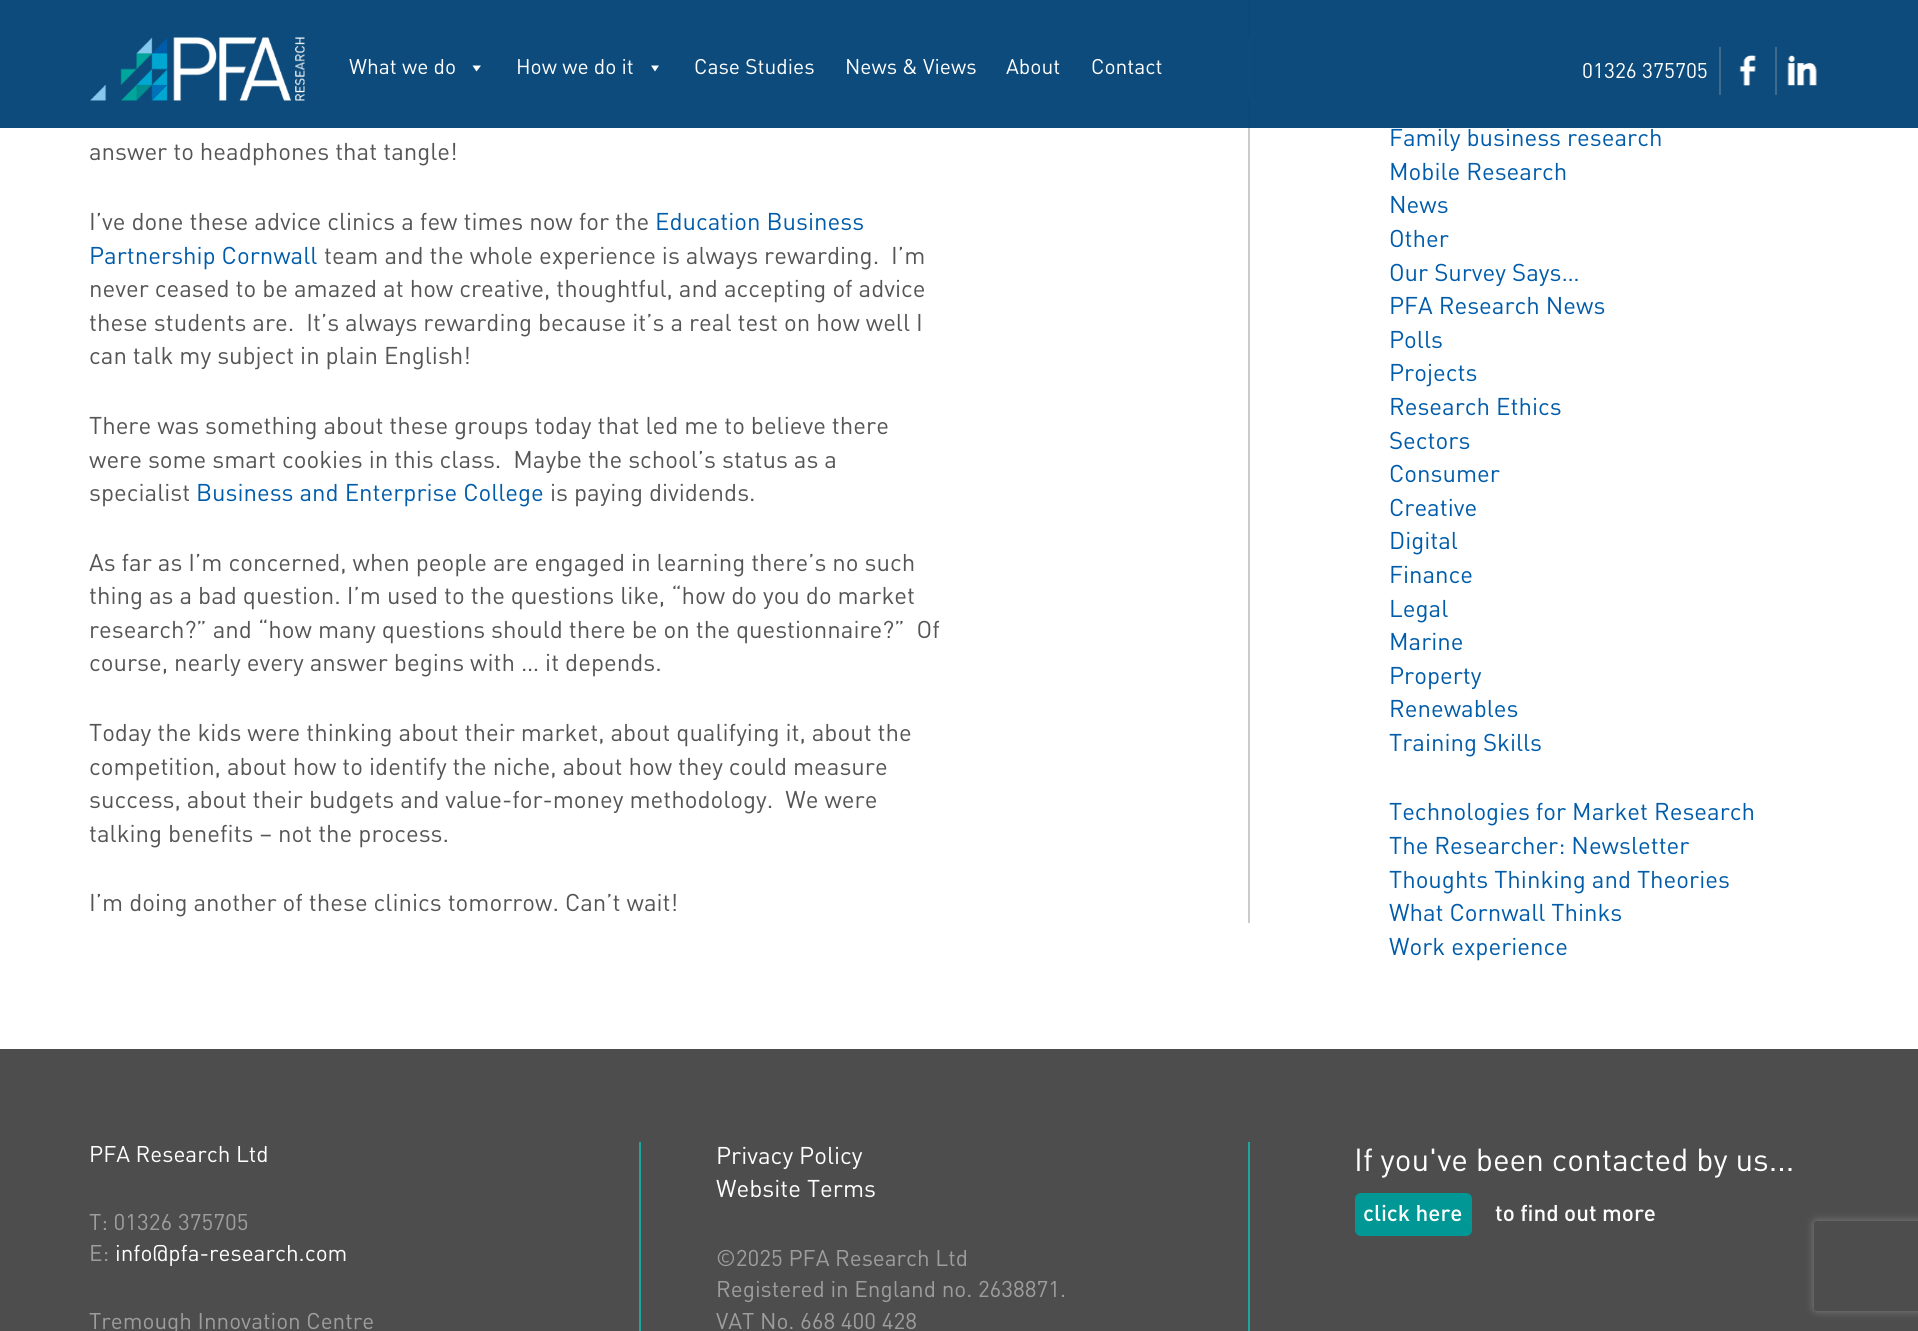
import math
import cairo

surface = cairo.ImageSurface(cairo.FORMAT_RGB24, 1918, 1331)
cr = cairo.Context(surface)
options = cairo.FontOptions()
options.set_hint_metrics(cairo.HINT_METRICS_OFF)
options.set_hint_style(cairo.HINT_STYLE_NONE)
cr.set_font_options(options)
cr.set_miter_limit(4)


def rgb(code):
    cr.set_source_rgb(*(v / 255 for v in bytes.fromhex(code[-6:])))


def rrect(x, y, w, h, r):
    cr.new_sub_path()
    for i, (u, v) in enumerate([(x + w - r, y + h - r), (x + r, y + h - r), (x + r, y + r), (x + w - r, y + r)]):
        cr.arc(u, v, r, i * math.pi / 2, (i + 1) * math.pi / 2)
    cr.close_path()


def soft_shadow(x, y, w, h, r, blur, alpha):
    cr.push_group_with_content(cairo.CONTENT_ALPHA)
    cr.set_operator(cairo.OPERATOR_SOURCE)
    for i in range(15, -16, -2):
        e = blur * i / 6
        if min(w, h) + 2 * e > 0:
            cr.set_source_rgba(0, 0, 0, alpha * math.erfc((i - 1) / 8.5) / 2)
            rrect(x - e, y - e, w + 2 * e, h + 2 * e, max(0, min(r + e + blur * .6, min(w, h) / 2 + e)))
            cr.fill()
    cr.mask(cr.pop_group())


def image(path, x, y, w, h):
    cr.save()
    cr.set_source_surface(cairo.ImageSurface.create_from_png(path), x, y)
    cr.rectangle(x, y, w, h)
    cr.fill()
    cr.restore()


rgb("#ffffff")
cr.paint()
rgb("#cccccc")
cr.rectangle(1248, 0, 2, 923)
cr.fill()
cr.set_source_rgba(0, 0.263, 0.463, 0.95)
cr.rectangle(0, 0, 1918, 128)
cr.fill()
image("img/1.png", 90, 37, 215, 64)
rgb("#0d4d7d")
cr.rectangle(1248, 38, 2, 60)
cr.fill()
rgb("#ffffff")
cr.new_path()
cr.move_to(481, 65.5)
cr.line_to(476.5, 71.5)
cr.line_to(472.5, 65.5)
cr.close_path()
cr.fill()
cr.new_path()
cr.move_to(659, 65.5)
cr.line_to(655, 71.5)
cr.line_to(651, 65.5)
cr.close_path()
cr.fill()
rgb("#3f6a8c")
cr.rectangle(1719, 47, 2, 48)
cr.fill()
image("img/2.png", 1739, 55, 17, 31)
cr.rectangle(1775, 47, 2, 48)
cr.fill()
image("img/3.png", 1787, 55, 30, 31)
for x, y, w, h, color in [
    (0, 1049, 1918, 282, "#4d4d4d"),
    (1248, 1142, 2, 189, "#1ea69c"),
    (639, 1142, 2, 189, "#1ea69c"),
]:
    rgb(color)
    cr.rectangle(x, y, w, h)
    cr.fill()
rgb("#009795")
rrect(1355, 1193, 117, 43, 6)
cr.fill()
cr.save()
cr.set_fill_rule(cairo.FILL_RULE_EVEN_ODD)
cr.new_path()
cr.move_to(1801, 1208)
cr.line_to(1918, 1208)
cr.line_to(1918, 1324)
cr.line_to(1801, 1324)
cr.close_path()
cr.move_to(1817, 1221)
cr.line_to(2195, 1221)
cr.curve_to(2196.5, 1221, 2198, 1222.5, 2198, 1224)
cr.line_to(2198, 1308)
cr.curve_to(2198, 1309.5, 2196.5, 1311, 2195, 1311)
cr.line_to(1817, 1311)
cr.curve_to(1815.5, 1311, 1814, 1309.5, 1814, 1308)
cr.line_to(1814, 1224)
cr.curve_to(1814, 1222.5, 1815.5, 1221, 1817, 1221)
cr.close_path()
cr.clip()
rgb("#808080")
soft_shadow(1814, 1221, 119, 90, 3, 4, 1)
cr.restore()
cr.select_font_face("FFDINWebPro")
cr.set_font_size(21)
rgb("#ffffff")
for x, y, s in [
    (349, 74, "What we do"),
    (516, 74, "How we do it"),
    (694, 74, "Case Studies"),
    (845, 74, "News & Views"),
    (1006, 74, "About"),
    (1091, 74, "Contact"),
    (1582, 78, "01326 375705"),
]:
    cr.move_to(x, y)
    cr.show_text(s)
cr.set_font_size(24)
rgb("#555555")
cr.move_to(89, 160)
cr.show_text("answer to headphones that tangle!")
cr.move_to(89, 230)
cr.show_text("I’ve done these advice clinics a few times now for the")
rgb("#005caa")
cr.move_to(655, 230)
cr.show_text("Education Business")
cr.move_to(89, 264)
cr.show_text("Partnership Cornwall")
rgb("#555555")
for x, y, s in [
    (324, 264, "team and the whole experience is always rewarding.  I’m"),
    (89, 297, "never ceased to be amazed at how creative, thoughtful, and accepting of advice"),
    (89, 331, "these students are.  It’s always rewarding because it’s a real test on how well I"),
    (89, 364, "can talk my subject in plain English!"),
    (89, 434, "There was something about these groups today that led me to believe there"),
    (89, 468, "were some smart cookies in this class.  Maybe the school’s status as a"),
    (89, 501, "specialist"),
]:
    cr.move_to(x, y)
    cr.show_text(s)
rgb("#005caa")
cr.move_to(196, 501)
cr.show_text("Business and Enterprise College")
rgb("#555555")
for x, y, s in [
    (550, 501, "is paying dividends."),
    (89, 571, "As far as I’m concerned, when people are engaged in learning there’s no such"),
    (89, 604, "thing as a bad question. I’m used to the questions like, “how do you do market"),
    (89, 638, "research?” and “how many questions should there be on the questionnaire?”  Of"),
    (89, 671, "course, nearly every answer begins with … it depends."),
    (89, 741, "Today the kids were thinking about their market, about qualifying it, about the"),
    (89, 775, "competition, about how to identify the niche, about how they could measure"),
    (89, 808, "success, about their budgets and value-for-money methodology.  We were"),
    (89, 842, "talking benefits – not the process."),
    (89, 911, "I’m doing another of these clinics tomorrow. Can’t wait!"),
]:
    cr.move_to(x, y)
    cr.show_text(s)
rgb("#005caa")
for x, y, s in [
    (1389, 146, "Family business research"),
    (1389, 180, "Mobile Research"),
    (1389, 213, "News"),
    (1389, 247, "Other"),
    (1389, 281, "Our Survey Says…"),
    (1389, 314, "PFA Research News"),
    (1389, 348, "Polls"),
    (1389, 381, "Projects"),
    (1389, 415, "Research Ethics"),
    (1389, 449, "Sectors"),
    (1389, 482, "Consumer"),
    (1389, 516, "Creative"),
    (1389, 549, "Digital"),
    (1389, 583, "Finance"),
    (1389, 617, "Legal"),
    (1389, 650, "Marine"),
    (1389, 684, "Property"),
    (1389, 717, "Renewables"),
    (1389, 751, "Training Skills"),
    (1389, 820, "Technologies for Market Research"),
    (1389, 854, "The Researcher: Newsletter"),
    (1389, 888, "Thoughts Thinking and Theories"),
    (1389, 921, "What Cornwall Thinks"),
    (1389, 955, "Work experience"),
]:
    cr.move_to(x, y)
    cr.show_text(s)
cr.set_font_size(22.5)
rgb("#ffffff")
cr.move_to(89, 1162)
cr.show_text("PFA Research Ltd")
rgb("#9d9d9d")
cr.move_to(89, 1230)
cr.show_text("T: 01326 375705")
cr.move_to(89, 1261)
cr.show_text("E:")
rgb("#ffffff")
cr.move_to(115, 1261)
cr.show_text("info@pfa-research.com")
rgb("#9d9d9d")
cr.move_to(89, 1329)
cr.show_text("Tremough Innovation Centre")
cr.set_font_size(24)
rgb("#ffffff")
cr.move_to(716, 1164)
cr.show_text("Privacy Policy")
cr.move_to(716, 1197)
cr.show_text("Website Terms")
cr.set_font_size(22.5)
rgb("#9d9d9d")
for x, y, s in [
    (716, 1266, "©2025 PFA Research Ltd"),
    (716, 1297, "Registered in England no. 2638871."),
    (716, 1329, "VAT No. 668 400 428"),
]:
    cr.move_to(x, y)
    cr.show_text(s)
cr.set_font_size(31.5)
rgb("#ffffff")
cr.move_to(1354, 1171)
cr.show_text("If you've been contacted by us...")
cr.select_font_face("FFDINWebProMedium")
cr.set_font_size(22.5)
cr.move_to(1363, 1221)
cr.show_text("click here")
cr.move_to(1495, 1221)
cr.show_text("to find out more")
surface.write_to_png("page.png")
